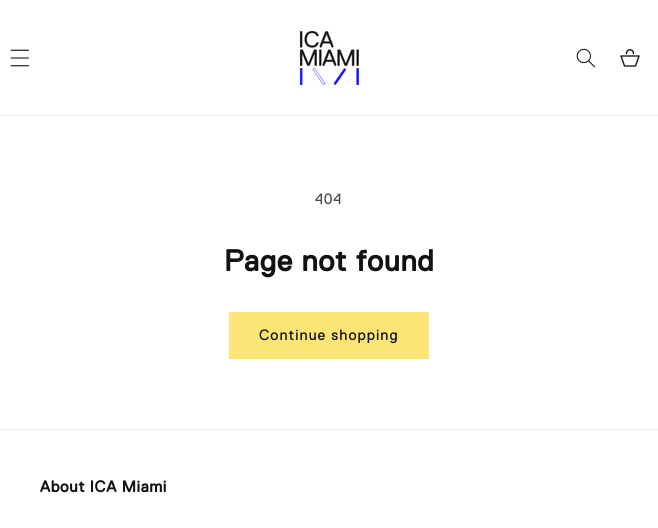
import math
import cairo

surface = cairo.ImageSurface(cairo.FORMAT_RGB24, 658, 528)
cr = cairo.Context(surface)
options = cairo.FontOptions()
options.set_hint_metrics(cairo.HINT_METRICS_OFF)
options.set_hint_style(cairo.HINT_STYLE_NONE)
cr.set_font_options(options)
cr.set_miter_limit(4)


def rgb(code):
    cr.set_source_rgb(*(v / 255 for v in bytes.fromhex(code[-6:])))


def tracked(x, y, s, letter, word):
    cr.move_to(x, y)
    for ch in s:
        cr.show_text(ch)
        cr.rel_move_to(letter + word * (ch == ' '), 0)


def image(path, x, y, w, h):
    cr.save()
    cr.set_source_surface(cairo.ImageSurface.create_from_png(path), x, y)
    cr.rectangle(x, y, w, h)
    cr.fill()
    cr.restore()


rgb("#ffffff")
cr.paint()
rgb("#ececec")
cr.rectangle(0, 115, 658, 1)
cr.fill()
image("img/1.png", 10, 49, 20, 18)
image("img/2.png", 298, 28, 62, 60)
image("img/3.png", 576, 48, 19, 20)
cr.new_path()
cr.move_to(621, 56)
cr.line_to(639, 56)
cr.line_to(635.5, 66)
cr.line_to(624.5, 66)
cr.close_path()
cr.move_to(633.5, 53.5)
cr.curve_to(633.5, 48.5, 626.5, 48.5, 626.5, 53.5)
rgb("#121212")
cr.set_line_width(1.4)
cr.set_line_cap(cairo.LINE_CAP_ROUND)
cr.set_line_join(cairo.LINE_JOIN_ROUND)
cr.stroke()
rgb("#fce477")
cr.rectangle(229, 312, 200, 47)
cr.fill()
rgb("#ececec")
cr.rectangle(0, 429, 658, 1)
cr.fill()
cr.select_font_face("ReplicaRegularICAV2")
cr.set_font_size(15)
rgb("#4d4d4d")
tracked(315, 204, "404", 0.6, 0)
cr.select_font_face("ReplicaRegularICAV2", cairo.FONT_SLANT_NORMAL, cairo.FONT_WEIGHT_BOLD)
cr.set_font_size(30)
rgb("#121212")
tracked(224, 271, "Page not found", 0.6, 0)
cr.select_font_face("ReplicaRegularICAV2")
cr.set_font_size(15)
tracked(259, 340, "Continue shopping", 1, 0)
cr.select_font_face("ReplicaRegularICAV2", cairo.FONT_SLANT_NORMAL, cairo.FONT_WEIGHT_BOLD)
cr.set_font_size(16)
tracked(40, 492, "About ICA Miami", 0.6, 0)
surface.write_to_png("page.png")
